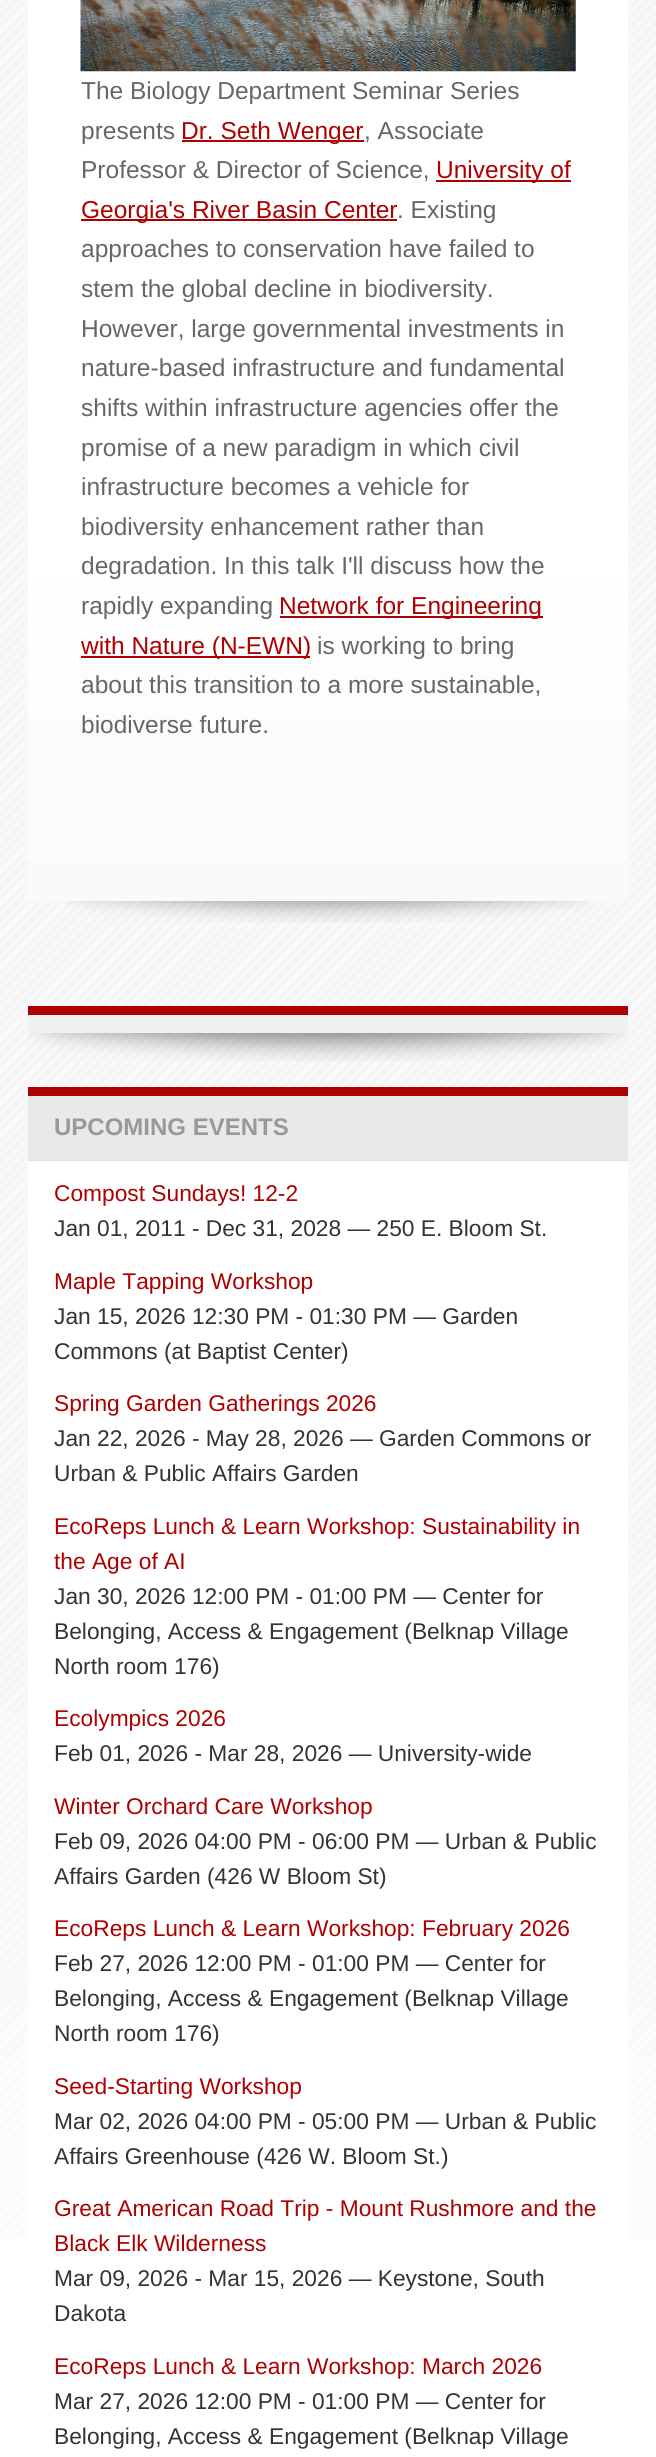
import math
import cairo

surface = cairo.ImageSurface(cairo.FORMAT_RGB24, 656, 2457)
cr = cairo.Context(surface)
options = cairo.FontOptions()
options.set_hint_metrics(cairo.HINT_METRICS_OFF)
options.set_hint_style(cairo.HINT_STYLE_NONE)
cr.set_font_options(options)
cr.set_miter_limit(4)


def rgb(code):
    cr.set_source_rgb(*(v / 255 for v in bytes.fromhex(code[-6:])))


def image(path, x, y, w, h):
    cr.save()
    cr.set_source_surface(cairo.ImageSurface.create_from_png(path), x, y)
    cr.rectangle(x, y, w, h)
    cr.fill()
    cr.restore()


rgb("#ffffff")
cr.paint()
image("img/1.png", 0, 0, 656, 2239)
gradient = cairo.LinearGradient(328, 901, 328, -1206)
gradient.add_color_stop_rgba(0, 0.98, 0.98, 0.98, 1)
gradient.add_color_stop_rgba(0.17, 1, 1, 1, 1)
cr.set_source(gradient)
cr.rectangle(28, 0, 600, 901)
cr.fill()
image("img/2.png", 80, 0, 496, 72)
for x, y, w, h, color in [
    (182, 140, 182, 2, "#ad0000"),
    (436, 180, 135, 2, "#ad0000"),
    (81, 219, 316, 2, "#ad0000"),
    (280, 616, 263, 2, "#ad0000"),
    (81, 656, 229, 2, "#ad0000"),
]:
    rgb(color)
    cr.rectangle(x, y, w, h)
    cr.fill()
image("img/3.png", 65, 901, 526, 22)
cr.rectangle(28, 1006, 600, 9)
cr.fill()
rgb("#edf1f2")
cr.rectangle(28, 1015, 600, 18)
cr.fill()
image("img/4.png", 28, 1033, 600, 29)
for x, y, w, h, color in [
    (28, 1087, 600, 9, "#ad0000"),
    (28, 1096, 600, 63, "#e9e9e9"),
    (28, 1161, 600, 1078, "#ffffff"),
    (28, 1159, 600, 2, "#e5e5e5"),
]:
    rgb(color)
    cr.rectangle(x, y, w, h)
    cr.fill()
cr.select_font_face("Liberation Sans")
cr.set_font_size(24.5)
rgb("#666666")
cr.move_to(81, 99)
cr.show_text("The Biology Department Seminar Series")
cr.move_to(81, 139)
cr.show_text("presents")
rgb("#ad0000")
cr.move_to(181, 139)
cr.show_text("Dr. Seth Wenger")
rgb("#666666")
cr.move_to(364, 139)
cr.show_text(", Associate")
cr.move_to(81, 178)
cr.show_text("Professor & Director of Science,")
rgb("#ad0000")
cr.move_to(436, 178)
cr.show_text("University of")
cr.move_to(81, 218)
cr.show_text("Georgia's River Basin Center")
rgb("#666666")
for x, y, s in [
    (397, 218, ". Existing"),
    (81, 257, "approaches to conservation have failed to"),
    (81, 297, "stem the global decline in biodiversity."),
    (81, 337, "However, large governmental investments in"),
    (81, 376, "nature-based infrastructure and fundamental"),
    (81, 416, "shifts within infrastructure agencies offer the"),
    (81, 456, "promise of a new paradigm in which civil"),
    (81, 495, "infrastructure becomes a vehicle for"),
    (81, 535, "biodiversity enhancement rather than"),
    (81, 574, "degradation. In this talk I'll discuss how the"),
    (81, 614, "rapidly expanding"),
]:
    cr.move_to(x, y)
    cr.show_text(s)
rgb("#ad0000")
cr.move_to(279, 614)
cr.show_text("Network for Engineering")
cr.move_to(81, 654)
cr.show_text("with Nature (N-EWN)")
rgb("#666666")
for x, y, s in [
    (317, 654, "is working to bring"),
    (81, 693, "about this transition to a more sustainable,"),
    (81, 733, "biodiverse future."),
]:
    cr.move_to(x, y)
    cr.show_text(s)
cr.select_font_face("Liberation Sans", cairo.FONT_SLANT_NORMAL, cairo.FONT_WEIGHT_BOLD)
cr.set_font_size(24)
rgb("#999999")
cr.move_to(54, 1135)
cr.show_text("UPCOMING EVENTS")
cr.select_font_face("Liberation Sans")
cr.set_font_size(22.75)
rgb("#ad0000")
cr.move_to(54, 1201)
cr.show_text("Compost Sundays! 12-2")
rgb("#333333")
cr.move_to(54, 1236)
cr.show_text("Jan 01, 2011 - Dec 31, 2028 — 250 E. Bloom St.")
rgb("#ad0000")
cr.move_to(54, 1289)
cr.show_text("Maple Tapping Workshop")
rgb("#333333")
cr.move_to(54, 1324)
cr.show_text("Jan 15, 2026 12:30 PM - 01:30 PM — Garden")
cr.move_to(54, 1359)
cr.show_text("Commons (at Baptist Center)")
rgb("#ad0000")
cr.move_to(54, 1411)
cr.show_text("Spring Garden Gatherings 2026")
rgb("#333333")
cr.move_to(54, 1446)
cr.show_text("Jan 22, 2026 - May 28, 2026 — Garden Commons or")
cr.move_to(54, 1481)
cr.show_text("Urban & Public Affairs Garden")
rgb("#ad0000")
cr.move_to(54, 1534)
cr.show_text("EcoReps Lunch & Learn Workshop: Sustainability in")
cr.move_to(54, 1569)
cr.show_text("the Age of AI")
rgb("#333333")
for x, y, s in [
    (54, 1604, "Jan 30, 2026 12:00 PM - 01:00 PM — Center for"),
    (54, 1639, "Belonging, Access & Engagement (Belknap Village"),
    (54, 1674, "North room 176)"),
]:
    cr.move_to(x, y)
    cr.show_text(s)
rgb("#ad0000")
cr.move_to(54, 1726)
cr.show_text("Ecolympics 2026")
rgb("#333333")
cr.move_to(54, 1761)
cr.show_text("Feb 01, 2026 - Mar 28, 2026 — University-wide")
rgb("#ad0000")
cr.move_to(54, 1814)
cr.show_text("Winter Orchard Care Workshop")
rgb("#333333")
cr.move_to(54, 1849)
cr.show_text("Feb 09, 2026 04:00 PM - 06:00 PM — Urban & Public")
cr.move_to(54, 1884)
cr.show_text("Affairs Garden (426 W Bloom St)")
rgb("#ad0000")
cr.move_to(54, 1936)
cr.show_text("EcoReps Lunch & Learn Workshop: February 2026")
rgb("#333333")
for x, y, s in [
    (54, 1971, "Feb 27, 2026 12:00 PM - 01:00 PM — Center for"),
    (54, 2006, "Belonging, Access & Engagement (Belknap Village"),
    (54, 2041, "North room 176)"),
]:
    cr.move_to(x, y)
    cr.show_text(s)
rgb("#ad0000")
cr.move_to(54, 2094)
cr.show_text("Seed-Starting Workshop")
rgb("#333333")
cr.move_to(54, 2129)
cr.show_text("Mar 02, 2026 04:00 PM - 05:00 PM — Urban & Public")
cr.move_to(54, 2164)
cr.show_text("Affairs Greenhouse (426 W. Bloom St.)")
rgb("#ad0000")
cr.move_to(54, 2216)
cr.show_text("Great American Road Trip - Mount Rushmore and the")
cr.move_to(54, 2251)
cr.show_text("Black Elk Wilderness")
rgb("#333333")
cr.move_to(54, 2286)
cr.show_text("Mar 09, 2026 - Mar 15, 2026 — Keystone, South")
cr.move_to(54, 2321)
cr.show_text("Dakota")
rgb("#ad0000")
cr.move_to(54, 2374)
cr.show_text("EcoReps Lunch & Learn Workshop: March 2026")
rgb("#333333")
cr.move_to(54, 2409)
cr.show_text("Mar 27, 2026 12:00 PM - 01:00 PM — Center for")
cr.move_to(54, 2444)
cr.show_text("Belonging, Access & Engagement (Belknap Village")
surface.write_to_png("page.png")
